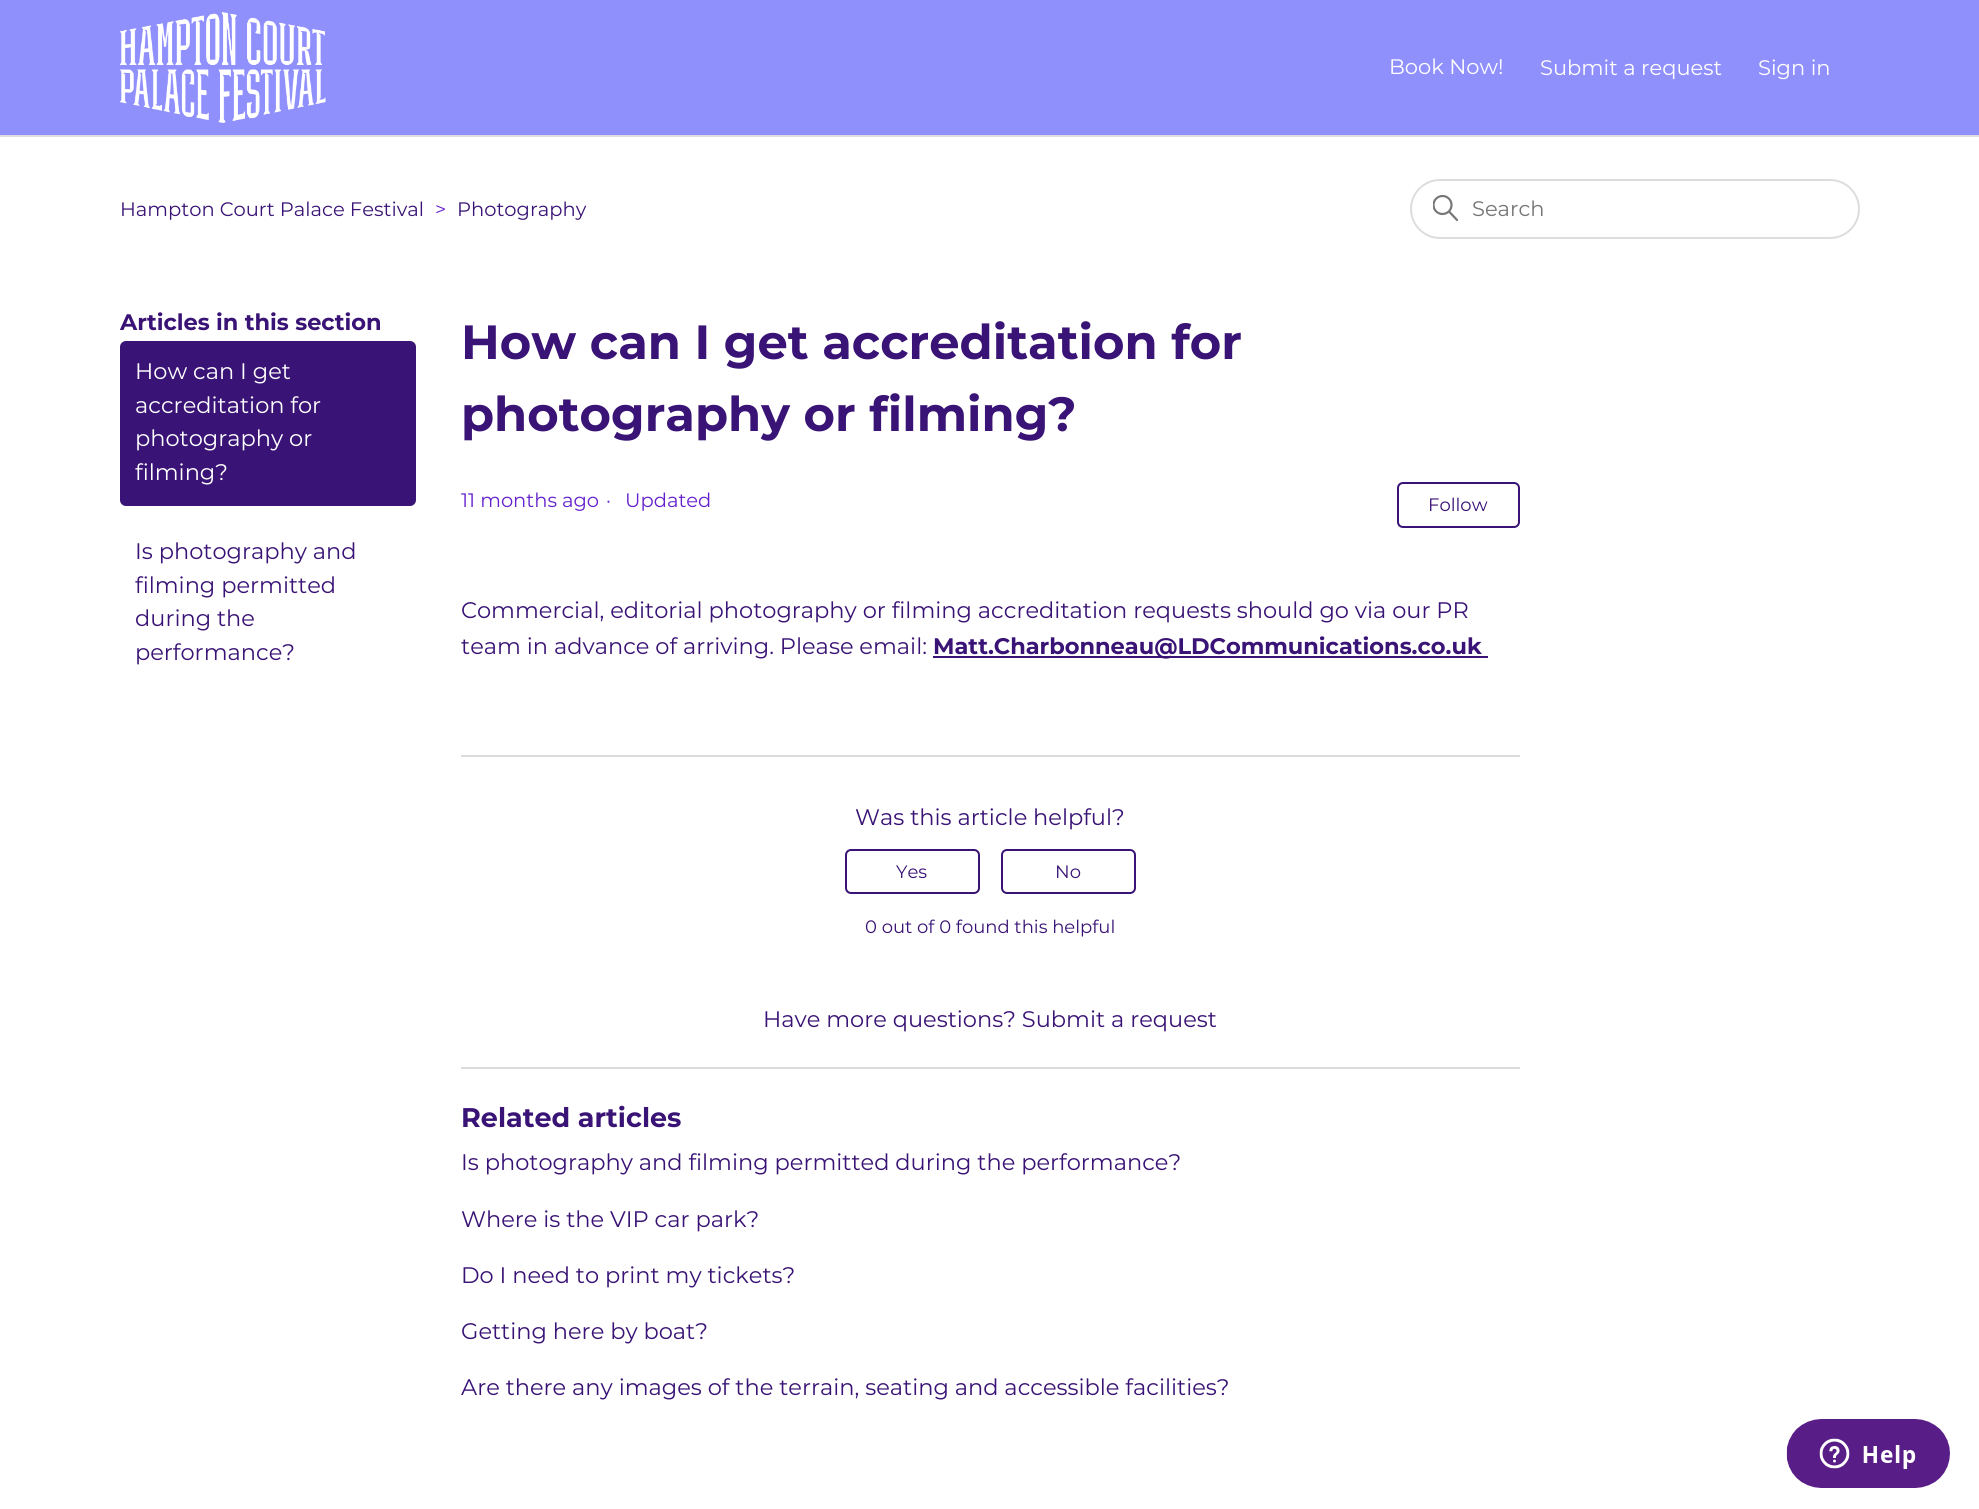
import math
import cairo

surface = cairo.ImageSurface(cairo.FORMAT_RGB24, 1979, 1509)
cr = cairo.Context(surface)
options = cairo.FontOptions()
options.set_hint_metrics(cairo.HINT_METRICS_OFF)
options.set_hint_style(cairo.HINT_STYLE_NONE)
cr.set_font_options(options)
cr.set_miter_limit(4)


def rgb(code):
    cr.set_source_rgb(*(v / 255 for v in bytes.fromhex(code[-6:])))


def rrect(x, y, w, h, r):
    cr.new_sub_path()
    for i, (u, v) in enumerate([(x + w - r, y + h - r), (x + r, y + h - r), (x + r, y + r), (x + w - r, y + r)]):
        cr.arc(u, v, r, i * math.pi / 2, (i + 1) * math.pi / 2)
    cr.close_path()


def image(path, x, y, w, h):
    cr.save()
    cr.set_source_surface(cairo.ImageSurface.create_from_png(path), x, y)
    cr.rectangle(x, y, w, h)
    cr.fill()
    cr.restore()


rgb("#ffffff")
cr.paint()
rgb("#9090fc")
cr.rectangle(0, 0, 1979, 135)
cr.fill()
image("img/1.png", 120, 12, 206, 111)
rgb("#dddddd")
cr.rectangle(0, 135, 1979, 2)
cr.fill()
rrect(1411, 180, 448, 58, 29)
cr.stroke()
cr.save()
cr.rectangle(1433, 195, 27, 27)
cr.clip()
cr.arc(1442.5, 205, 9, 0, 2 * math.pi)
rgb("#777777")
cr.set_line_width(2.2)
cr.stroke()
cr.restore()
cr.new_path()
cr.move_to(1457, 220)
cr.line_to(1449.5, 212)
rgb("#777777")
cr.set_line_width(2.2)
cr.set_line_cap(cairo.LINE_CAP_ROUND)
cr.stroke()
rgb("#391375")
rrect(120, 341, 296, 165, 6)
cr.fill()
rrect(1398, 483, 121, 44, 5)
cr.set_line_width(2)
cr.set_line_cap(cairo.LINE_CAP_BUTT)
cr.stroke()
cr.rectangle(933, 656, 555, 2)
cr.fill()
rgb("#dddddd")
cr.rectangle(461, 755, 1059, 2)
cr.fill()
rrect(846, 850, 133, 43, 5)
rgb("#391375")
cr.stroke()
rrect(1002, 850, 133, 43, 5)
cr.stroke()
rgb("#dddddd")
cr.rectangle(461, 1067, 1059, 2)
cr.fill()
image("img/2.png", 1786, 1419, 164, 69)
cr.select_font_face("Montserrat")
cr.set_font_size(21)
rgb("#ffffff")
for x, y, s in [
    (1389, 74, "Book Now!"),
    (1540, 75, "Submit a request"),
    (1758, 75, "Sign in"),
]:
    cr.move_to(x, y)
    cr.show_text(s)
cr.set_font_size(19.5)
rgb("#391375")
cr.move_to(120, 216)
cr.show_text("Hampton Court Palace Festival")
rgb("#6421cd")
cr.move_to(435, 216)
cr.show_text(">")
rgb("#391375")
cr.move_to(457, 216)
cr.show_text("Photography")
cr.set_font_size(21)
rgb("#757575")
cr.move_to(1472, 216)
cr.show_text("Search")
cr.select_font_face("Montserrat", cairo.FONT_SLANT_NORMAL, cairo.FONT_WEIGHT_BOLD)
cr.set_font_size(22.5)
rgb("#391375")
cr.move_to(120, 330)
cr.show_text("Articles in this section")
cr.select_font_face("Montserrat")
rgb("#ffffff")
for x, y, s in [
    (135, 379, "How can I get"),
    (135, 413, "accreditation for"),
    (135, 446, "photography or"),
    (135, 480, "filming?"),
]:
    cr.move_to(x, y)
    cr.show_text(s)
rgb("#391375")
for x, y, s in [
    (135, 559, "Is photography and"),
    (135, 593, "filming permitted"),
    (135, 626, "during the"),
    (135, 660, "performance?"),
]:
    cr.move_to(x, y)
    cr.show_text(s)
cr.select_font_face("Montserrat", cairo.FONT_SLANT_NORMAL, cairo.FONT_WEIGHT_BOLD)
cr.set_font_size(48)
cr.move_to(461, 359)
cr.show_text("How can I get accreditation for")
cr.move_to(461, 431)
cr.show_text("photography or filming?")
cr.select_font_face("Montserrat")
cr.set_font_size(19.5)
rgb("#6421cd")
for x, y, s in [
    (461, 507, "11 months ago"),
    (606, 507, "·"),
    (625, 507, "Updated"),
]:
    cr.move_to(x, y)
    cr.show_text(s)
cr.set_font_size(18)
rgb("#391375")
cr.move_to(1428, 511)
cr.show_text("Follow")
cr.set_font_size(22.5)
cr.move_to(461, 618)
cr.show_text("Commercial, editorial photography or filming accreditation requests should go via our PR")
cr.move_to(461, 654)
cr.show_text("team in advance of arriving. Please email:")
cr.select_font_face("Montserrat", cairo.FONT_SLANT_NORMAL, cairo.FONT_WEIGHT_BOLD)
cr.move_to(933, 654)
cr.show_text("Matt.Charbonneau@LDCommunications.co.uk")
cr.select_font_face("Montserrat")
cr.move_to(855, 825)
cr.show_text("Was this article helpful?")
cr.set_font_size(18)
for x, y, s in [
    (896, 878, "Yes"),
    (1055, 878, "No"),
    (865, 933, "0 out of 0 found this helpful"),
]:
    cr.move_to(x, y)
    cr.show_text(s)
cr.set_font_size(22.5)
cr.move_to(763, 1027)
cr.show_text("Have more questions? Submit a request")
cr.select_font_face("Montserrat", cairo.FONT_SLANT_NORMAL, cairo.FONT_WEIGHT_BOLD)
cr.set_font_size(27)
cr.move_to(461, 1127)
cr.show_text("Related articles")
cr.select_font_face("Montserrat")
cr.set_font_size(22.5)
for x, y, s in [
    (461, 1170, "Is photography and filming permitted during the performance?"),
    (461, 1227, "Where is the VIP car park?"),
    (461, 1283, "Do I need to print my tickets?"),
    (461, 1339, "Getting here by boat?"),
    (461, 1395, "Are there any images of the terrain, seating and accessible facilities?"),
]:
    cr.move_to(x, y)
    cr.show_text(s)
surface.write_to_png("page.png")
